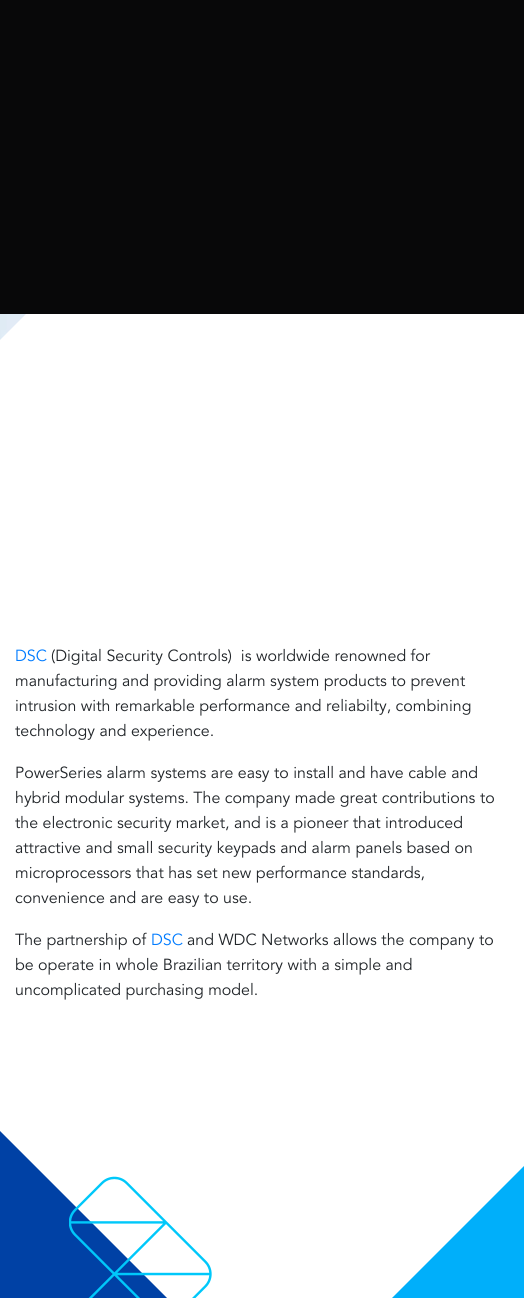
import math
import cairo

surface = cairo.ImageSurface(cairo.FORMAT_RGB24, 524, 1298)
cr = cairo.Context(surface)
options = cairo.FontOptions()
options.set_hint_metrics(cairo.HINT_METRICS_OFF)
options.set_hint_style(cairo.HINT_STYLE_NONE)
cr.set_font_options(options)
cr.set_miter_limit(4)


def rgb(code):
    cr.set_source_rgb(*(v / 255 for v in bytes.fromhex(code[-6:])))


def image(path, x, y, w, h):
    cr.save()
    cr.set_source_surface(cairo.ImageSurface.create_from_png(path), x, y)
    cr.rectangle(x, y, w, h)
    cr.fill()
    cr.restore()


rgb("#080809")
cr.paint()
image("img/1.png", 0, 314, 26, 26)
rgb("#ffffff")
cr.new_path()
cr.move_to(26, 314)
cr.line_to(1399, 314)
cr.line_to(-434, 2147)
cr.line_to(-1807, 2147)
cr.close_path()
cr.fill()
rgb("#0041a5")
cr.new_path()
cr.move_to(-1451, 314)
cr.line_to(-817, 314)
cr.line_to(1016, 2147)
cr.line_to(382, 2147)
cr.close_path()
cr.fill()
image("img/2.png", 69, 1176, 143, 122)
rgb("#00affa")
cr.new_path()
cr.move_to(524, 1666)
cr.line_to(24, 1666)
cr.line_to(524, 1166)
cr.close_path()
cr.fill()
cr.select_font_face("Avenir")
cr.set_font_size(16)
rgb("#007bff")
cr.move_to(15, 661)
cr.show_text("DSC")
rgb("#212529")
for x, y, s in [
    (51, 661, "(Digital Security Controls)  is worldwide renowned for"),
    (15, 686, "manufacturing and providing alarm system products to prevent"),
    (15, 711, "intrusion with remarkable performance and reliabilty, combining"),
    (15, 736, "technology and experience."),
    (15, 778, "PowerSeries alarm systems are easy to install and have cable and"),
    (15, 803, "hybrid modular systems. The company made great contributions to"),
    (15, 828, "the electronic security market, and is a pioneer that introduced"),
    (15, 853, "attractive and small security keypads and alarm panels based on"),
    (15, 878, "microprocessors that has set new performance standards,"),
    (15, 903, "convenience and are easy to use."),
    (15, 945, "The partnership of"),
]:
    cr.move_to(x, y)
    cr.show_text(s)
rgb("#007bff")
cr.move_to(151, 945)
cr.show_text("DSC")
rgb("#212529")
for x, y, s in [
    (187, 945, "and WDC Networks allows the company to"),
    (15, 970, "be operate in whole Brazilian territory with a simple and"),
    (15, 995, "uncomplicated purchasing model."),
]:
    cr.move_to(x, y)
    cr.show_text(s)
surface.write_to_png("page.png")
